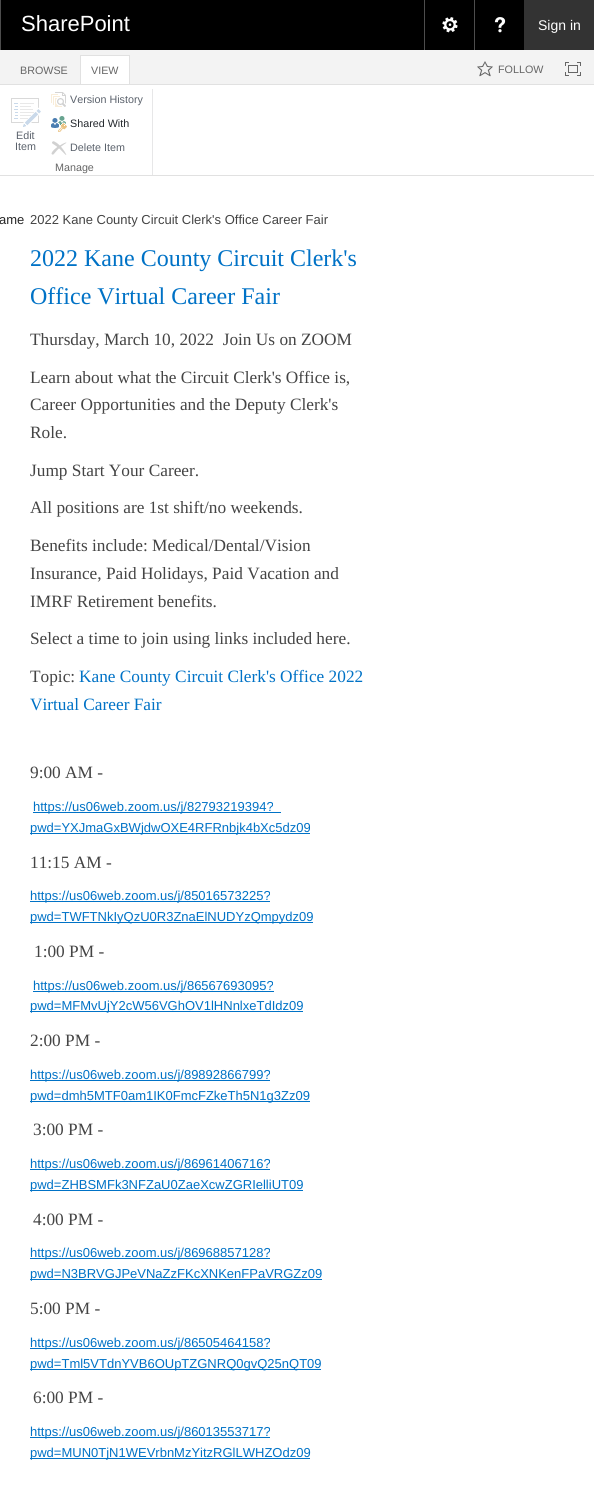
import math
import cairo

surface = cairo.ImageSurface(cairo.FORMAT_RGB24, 594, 1485)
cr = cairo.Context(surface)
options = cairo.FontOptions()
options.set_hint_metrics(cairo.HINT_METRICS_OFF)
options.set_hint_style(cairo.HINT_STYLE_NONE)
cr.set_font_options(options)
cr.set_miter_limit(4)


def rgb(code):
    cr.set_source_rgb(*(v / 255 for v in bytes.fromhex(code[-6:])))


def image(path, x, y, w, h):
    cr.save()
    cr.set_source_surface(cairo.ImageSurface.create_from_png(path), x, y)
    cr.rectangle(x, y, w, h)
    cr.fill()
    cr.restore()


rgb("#ffffff")
cr.paint()
for x, y, w, h, color in [
    (1, 0, 523, 50, "#000000"),
    (0, 0, 1, 50, "#4d4d4d"),
    (424, 0, 1, 50, "#4d4d4d"),
]:
    rgb(color)
    cr.rectangle(x, y, w, h)
    cr.fill()
image("img/1.png", 442, 17, 16, 16)
cr.rectangle(474, 0, 1, 50)
cr.fill()
image("img/2.png", 494, 17, 12, 16)
for x, y, w, h, color in [
    (524, 0, 70, 50, "#333333"),
    (0, 50, 594, 34, "#f3f3f3"),
    (0, 84, 594, 1, "#e1e1e1"),
    (81, 56, 48, 28, "#ffffff"),
    (80, 55, 50, 1, "#e1e1e1"),
    (129, 55, 1, 29, "#e1e1e1"),
    (80, 55, 1, 29, "#e1e1e1"),
]:
    rgb(color)
    cr.rectangle(x, y, w, h)
    cr.fill()
image("img/3.png", 477, 61, 16, 16)
image("img/4.png", 565, 62, 16, 14)
cr.rectangle(0, 175, 594, 1)
cr.fill()
image("img/5.png", 11, 98, 30, 29)
image("img/6.png", 51, 92, 15, 15)
image("img/7.png", 51, 116, 16, 16)
image("img/8.png", 51, 141, 16, 14)
for x, y, w, h, color in [
    (152, 89, 1, 86, "#e7e7e8"),
    (33, 812, 248, 1, "#0072c6"),
    (30, 833, 280, 1, "#0072c6"),
    (30, 901, 240, 1, "#0072c6"),
    (30, 922, 283, 1, "#0072c6"),
    (33, 991, 241, 1, "#0072c6"),
    (30, 1011, 273, 1, "#0072c6"),
    (30, 1080, 240, 1, "#0072c6"),
    (30, 1101, 280, 1, "#0072c6"),
    (30, 1169, 240, 1, "#0072c6"),
    (30, 1190, 273, 1, "#0072c6"),
    (30, 1258, 240, 1, "#0072c6"),
    (30, 1279, 292, 1, "#0072c6"),
    (30, 1348, 240, 1, "#0072c6"),
    (30, 1369, 291, 1, "#0072c6"),
    (30, 1437, 240, 1, "#0072c6"),
    (30, 1458, 280, 1, "#0072c6"),
]:
    rgb(color)
    cr.rectangle(x, y, w, h)
    cr.fill()
cr.select_font_face("Liberation Sans")
cr.set_font_size(22)
rgb("#ffffff")
cr.move_to(21, 31)
cr.show_text("SharePoint")
cr.set_font_size(14)
cr.move_to(538, 30)
cr.show_text("Sign in")
cr.set_font_size(10.75)
rgb("#666666")
for x, y, s in [
    (20, 74, "BROWSE"),
    (91, 74, "VIEW"),
    (498, 73, "FOLLOW"),
]:
    cr.move_to(x, y)
    cr.show_text(s)
rgb("#5b626c")
for x, y, s in [
    (16, 139, "Edit"),
    (15, 150, "Item"),
    (70, 103, "Version History"),
]:
    cr.move_to(x, y)
    cr.show_text(s)
rgb("#23272c")
cr.move_to(70, 127)
cr.show_text("Shared With")
rgb("#5b626c")
cr.move_to(70, 151)
cr.show_text("Delete Item")
rgb("#666666")
cr.move_to(55, 171)
cr.show_text("Manage")
cr.set_font_size(13)
rgb("#262626")
cr.move_to(-1, 224)
cr.show_text("ame")
rgb("#444444")
cr.move_to(30, 224)
cr.show_text("2022 Kane County Circuit Clerk's Office Career Fair")
cr.select_font_face("Liberation Serif")
cr.set_font_size(24)
rgb("#0072c6")
cr.move_to(30, 266)
cr.show_text("2022 Kane County Circuit Clerk's")
cr.move_to(30, 304)
cr.show_text("Office Virtual Career Fair")
cr.set_font_size(17.3)
rgb("#444444")
for x, y, s in [
    (30, 345, "Thursday, March 10, 2022  Join Us on ZOOM"),
    (30, 383, "Learn about what the Circuit Clerk's Office is,"),
    (30, 410, "Career Opportunities and the Deputy Clerk's"),
    (30, 438, "Role."),
    (30, 476, "Jump Start Your Career."),
    (30, 513, "All positions are 1st shift/no weekends."),
    (30, 551, "Benefits include: Medical/Dental/Vision"),
    (30, 579, "Insurance, Paid Holidays, Paid Vacation and"),
    (30, 607, "IMRF Retirement benefits."),
    (30, 644, "Select a time to join using links included here."),
    (30, 682, "Topic:"),
]:
    cr.move_to(x, y)
    cr.show_text(s)
rgb("#0072c6")
cr.move_to(79, 682)
cr.show_text("Kane County Circuit Clerk's Office 2022")
cr.move_to(30, 710)
cr.show_text("Virtual Career Fair")
rgb("#444444")
cr.move_to(30, 778)
cr.show_text("9:00 AM -")
cr.select_font_face("Liberation Sans")
cr.set_font_size(13)
rgb("#0072c6")
cr.move_to(33, 811)
cr.show_text("https://us06web.zoom.us/j/82793219394?")
cr.move_to(30, 832)
cr.show_text("pwd=YXJmaGxBWjdwOXE4RFRnbjk4bXc5dz09")
cr.select_font_face("Liberation Serif")
cr.set_font_size(17.3)
rgb("#444444")
cr.move_to(30, 868)
cr.show_text("11:15 AM -")
cr.select_font_face("Liberation Sans")
cr.set_font_size(13)
rgb("#0072c6")
cr.move_to(30, 900)
cr.show_text("https://us06web.zoom.us/j/85016573225?")
cr.move_to(30, 921)
cr.show_text("pwd=TWFTNkIyQzU0R3ZnaElNUDYzQmpydz09")
cr.select_font_face("Liberation Serif")
cr.set_font_size(17.3)
rgb("#444444")
cr.move_to(34, 957)
cr.show_text("1:00 PM -")
cr.select_font_face("Liberation Sans")
cr.set_font_size(13)
rgb("#0072c6")
cr.move_to(33, 990)
cr.show_text("https://us06web.zoom.us/j/86567693095?")
cr.move_to(30, 1010)
cr.show_text("pwd=MFMvUjY2cW56VGhOV1lHNnlxeTdIdz09")
cr.select_font_face("Liberation Serif")
cr.set_font_size(17.3)
rgb("#444444")
cr.move_to(30, 1046)
cr.show_text("2:00 PM -")
cr.select_font_face("Liberation Sans")
cr.set_font_size(13)
rgb("#0072c6")
cr.move_to(30, 1079)
cr.show_text("https://us06web.zoom.us/j/89892866799?")
cr.move_to(30, 1100)
cr.show_text("pwd=dmh5MTF0am1IK0FmcFZkeTh5N1g3Zz09")
cr.select_font_face("Liberation Serif")
cr.set_font_size(17.3)
rgb("#444444")
cr.move_to(33, 1135)
cr.show_text("3:00 PM -")
cr.select_font_face("Liberation Sans")
cr.set_font_size(13)
rgb("#0072c6")
cr.move_to(30, 1168)
cr.show_text("https://us06web.zoom.us/j/86961406716?")
cr.move_to(30, 1189)
cr.show_text("pwd=ZHBSMFk3NFZaU0ZaeXcwZGRIelliUT09")
cr.select_font_face("Liberation Serif")
cr.set_font_size(17.3)
rgb("#444444")
cr.move_to(33, 1225)
cr.show_text("4:00 PM -")
cr.select_font_face("Liberation Sans")
cr.set_font_size(13)
rgb("#0072c6")
cr.move_to(30, 1257)
cr.show_text("https://us06web.zoom.us/j/86968857128?")
cr.move_to(30, 1278)
cr.show_text("pwd=N3BRVGJPeVNaZzFKcXNKenFPaVRGZz09")
cr.select_font_face("Liberation Serif")
cr.set_font_size(17.3)
rgb("#444444")
cr.move_to(30, 1314)
cr.show_text("5:00 PM -")
cr.select_font_face("Liberation Sans")
cr.set_font_size(13)
rgb("#0072c6")
cr.move_to(30, 1347)
cr.show_text("https://us06web.zoom.us/j/86505464158?")
cr.move_to(30, 1368)
cr.show_text("pwd=Tml5VTdnYVB6OUpTZGNRQ0gvQ25nQT09")
cr.select_font_face("Liberation Serif")
cr.set_font_size(17.3)
rgb("#444444")
cr.move_to(33, 1403)
cr.show_text("6:00 PM -")
cr.select_font_face("Liberation Sans")
cr.set_font_size(13)
rgb("#0072c6")
cr.move_to(30, 1436)
cr.show_text("https://us06web.zoom.us/j/86013553717?")
cr.move_to(30, 1457)
cr.show_text("pwd=MUN0TjN1WEVrbnMzYitzRGlLWHZOdz09")
surface.write_to_png("page.png")
